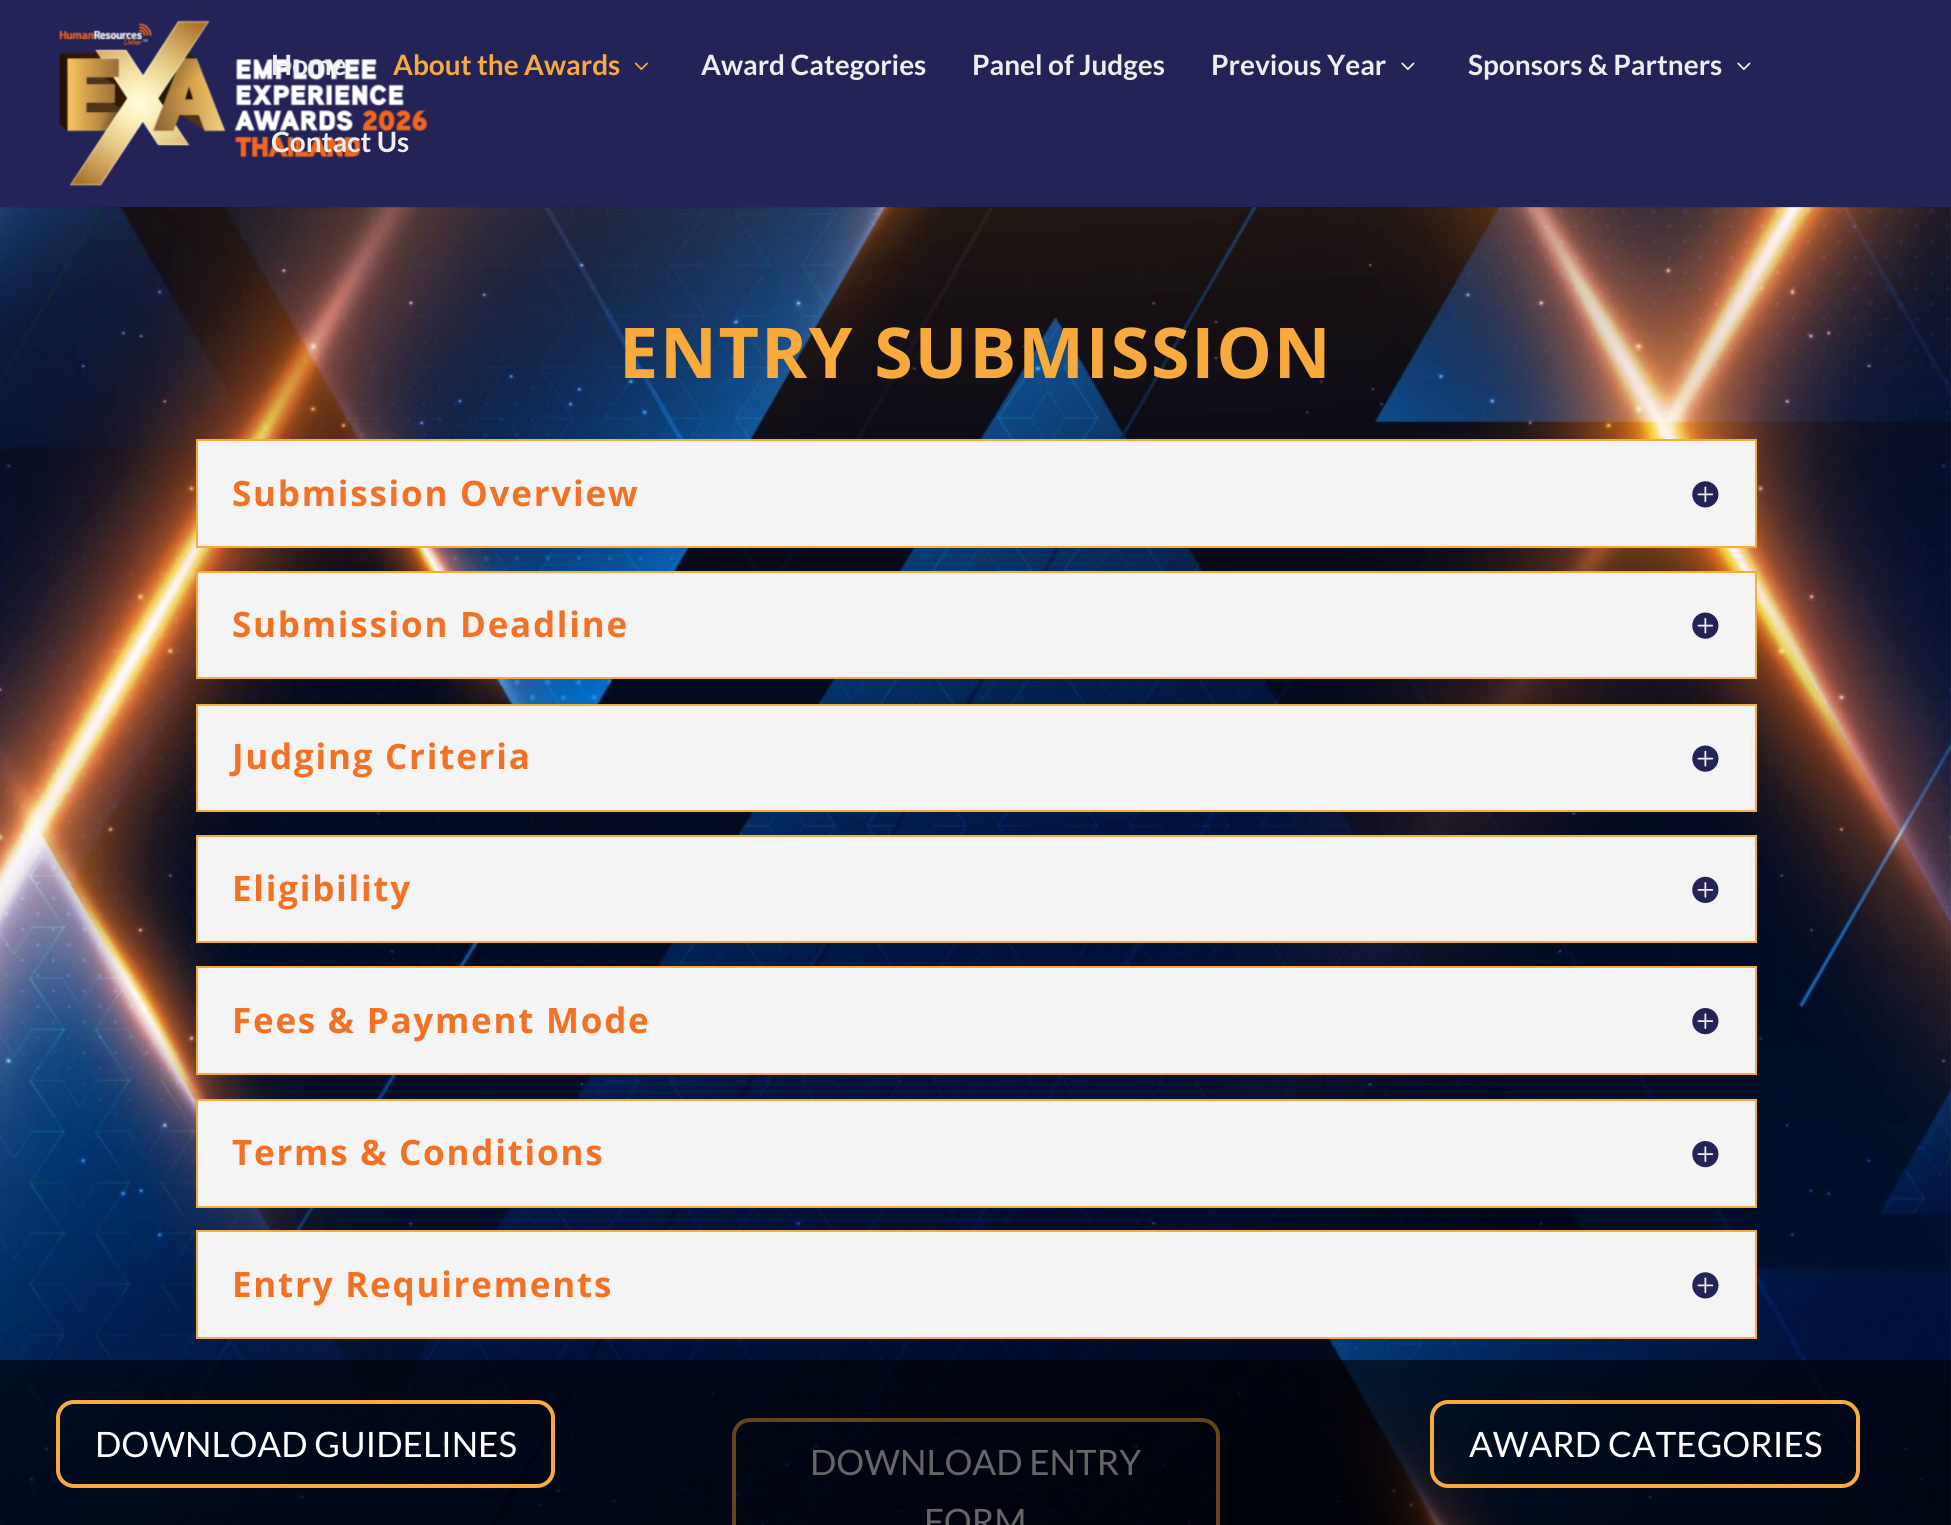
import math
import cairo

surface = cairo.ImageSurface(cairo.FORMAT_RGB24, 1951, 1525)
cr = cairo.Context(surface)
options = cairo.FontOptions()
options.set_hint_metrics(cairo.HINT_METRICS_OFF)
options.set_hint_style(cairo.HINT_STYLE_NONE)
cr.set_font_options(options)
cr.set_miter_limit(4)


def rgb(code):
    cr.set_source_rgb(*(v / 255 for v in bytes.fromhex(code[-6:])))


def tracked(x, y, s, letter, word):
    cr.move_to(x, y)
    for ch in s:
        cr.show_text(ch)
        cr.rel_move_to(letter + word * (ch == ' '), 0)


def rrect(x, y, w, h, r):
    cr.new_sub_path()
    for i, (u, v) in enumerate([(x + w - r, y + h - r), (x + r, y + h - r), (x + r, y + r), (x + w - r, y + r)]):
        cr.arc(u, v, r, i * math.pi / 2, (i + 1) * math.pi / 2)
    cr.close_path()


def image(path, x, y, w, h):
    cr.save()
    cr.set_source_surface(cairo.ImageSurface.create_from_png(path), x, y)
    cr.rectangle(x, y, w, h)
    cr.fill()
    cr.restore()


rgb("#ffffff")
cr.paint()
image("img/1.png", 0, 207, 1951, 1318)
cr.set_source_rgba(0, 0, 0, 0.1)
cr.rectangle(0, 207, 1951, 1)
cr.fill()
rgb("#232357")
cr.rectangle(0, 0, 1951, 207)
cr.fill()
image("img/2.png", 59, 20, 369, 167)
image("img/3.png", 634, 62, 14, 8)
image("img/4.png", 1401, 62, 14, 8)
image("img/4.png", 1737, 62, 14, 8)
rgb("#f4f4f4")
cr.rectangle(197, 440, 1559, 107)
cr.fill_preserve()
rgb("#f9aa3d")
cr.stroke()
image("img/5.png", 1692, 481, 27, 27)
rgb("#f4f4f4")
cr.rectangle(197, 572, 1559, 106)
cr.fill_preserve()
rgb("#f9aa3d")
cr.stroke()
image("img/6.png", 1692, 612, 27, 27)
rgb("#f4f4f4")
cr.rectangle(197, 705, 1559, 106)
cr.fill_preserve()
rgb("#f9aa3d")
cr.stroke()
image("img/6.png", 1692, 745, 27, 27)
rgb("#f4f4f4")
cr.rectangle(197, 836, 1559, 106)
cr.fill_preserve()
rgb("#f9aa3d")
cr.stroke()
image("img/7.png", 1692, 876, 27, 27)
rgb("#f4f4f4")
cr.rectangle(197, 967, 1559, 107)
cr.fill_preserve()
rgb("#f9aa3d")
cr.stroke()
image("img/8.png", 1692, 1008, 27, 27)
rgb("#f4f4f4")
cr.rectangle(197, 1100, 1559, 107)
cr.fill_preserve()
rgb("#f9aa3d")
cr.stroke()
image("img/8.png", 1692, 1141, 27, 27)
rgb("#f4f4f4")
cr.rectangle(197, 1231, 1559, 107)
cr.fill_preserve()
rgb("#f9aa3d")
cr.stroke()
image("img/5.png", 1692, 1272, 27, 27)
rrect(734, 1420, 484, 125, 16)
cr.set_line_width(4)
cr.stroke()
cr.select_font_face("Lato", cairo.FONT_SLANT_NORMAL, cairo.FONT_WEIGHT_BOLD)
cr.set_font_size(28)
rgb("#eeeeee")
cr.move_to(271, 75)
cr.show_text("Home")
rgb("#f9aa3d")
cr.move_to(393, 75)
cr.show_text("About the Awards")
rgb("#eeeeee")
for x, y, s in [
    (701, 75, "Award Categories"),
    (972, 75, "Panel of Judges"),
    (1211, 75, "Previous Year"),
    (1468, 75, "Sponsors & Partners"),
    (271, 152, "Contact Us"),
]:
    cr.move_to(x, y)
    cr.show_text(s)
cr.select_font_face("Open Sans", cairo.FONT_SLANT_NORMAL, cairo.FONT_WEIGHT_BOLD)
cr.set_font_size(70)
rgb("#f9aa3d")
tracked(619, 378, "ENTRY SUBMISSION", 1.75, 0)
cr.set_font_size(35)
rgb("#f37125")
for x, y, s in [
    (232, 506, "Submission Overview"),
    (232, 637, "Submission Deadline"),
    (232, 769, "Judging Criteria"),
    (232, 901, "Eligibility"),
    (232, 1033, "Fees & Payment Mode"),
    (232, 1165, "Terms & Conditions"),
    (232, 1297, "Entry Requirements"),
]:
    tracked(x, y, s, 1.75, 0)
cr.select_font_face("Lato")
rgb("#ffffff")
cr.move_to(810, 1475)
cr.show_text("DOWNLOAD ENTRY")
cr.move_to(924, 1534)
cr.show_text("FORM")
cr.set_source_rgba(0, 0, 0, 0.6)
cr.rectangle(0, 1360, 1951, 165)
cr.fill()
rrect(58, 1402, 495, 84, 16)
rgb("#f9aa3d")
cr.stroke()
rgb("#ffffff")
cr.move_to(95, 1457)
cr.show_text("DOWNLOAD GUIDELINES")
rrect(1432, 1402, 426, 84, 16)
rgb("#f9aa3d")
cr.stroke()
rgb("#ffffff")
cr.move_to(1469, 1457)
cr.show_text("AWARD CATEGORIES")
surface.write_to_png("page.png")
